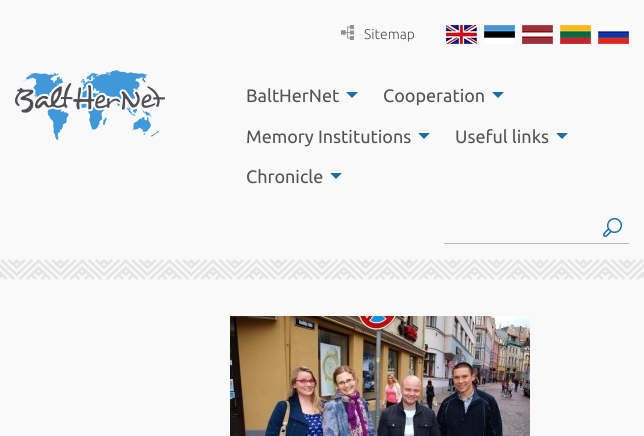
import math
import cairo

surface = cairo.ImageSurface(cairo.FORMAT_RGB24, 644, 436)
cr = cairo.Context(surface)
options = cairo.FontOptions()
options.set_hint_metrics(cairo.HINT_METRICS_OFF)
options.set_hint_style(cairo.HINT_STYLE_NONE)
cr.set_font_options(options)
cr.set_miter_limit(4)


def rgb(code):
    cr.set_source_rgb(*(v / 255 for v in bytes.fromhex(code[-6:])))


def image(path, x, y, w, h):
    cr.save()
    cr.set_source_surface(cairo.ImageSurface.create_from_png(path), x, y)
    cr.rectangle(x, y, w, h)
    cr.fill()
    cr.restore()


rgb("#f9f9f9")
cr.paint()
image("img/1.png", 0, 259, 644, 21)
image("img/2.png", 15, 70, 150, 70)
image("img/3.png", 341, 25, 13, 15)
image("img/4.png", 446, 25, 31, 19)
image("img/5.png", 484, 25, 31, 19)
image("img/6.png", 522, 25, 31, 19)
image("img/7.png", 560, 25, 31, 19)
image("img/8.png", 598, 25, 31, 19)
rgb("#206ba4")
cr.new_path()
cr.move_to(346, 92)
cr.line_to(358, 92)
cr.line_to(352, 98)
cr.close_path()
cr.fill()
cr.new_path()
cr.move_to(492, 92)
cr.line_to(504, 92)
cr.line_to(498, 98)
cr.close_path()
cr.fill()
cr.new_path()
cr.move_to(418, 133)
cr.line_to(430, 133)
cr.line_to(424, 139)
cr.close_path()
cr.fill()
cr.new_path()
cr.move_to(556, 133)
cr.line_to(568, 133)
cr.line_to(562, 139)
cr.close_path()
cr.fill()
cr.new_path()
cr.move_to(330, 173)
cr.line_to(342, 173)
cr.line_to(336, 179)
cr.close_path()
cr.fill()
image("img/9.png", 603, 218, 19, 19)
rgb("#b9b9b9")
cr.rectangle(444, 243, 185, 1)
cr.fill()
image("img/10.png", 230, 316, 300, 120)
cr.select_font_face("Ubuntu Light")
cr.set_font_size(14)
rgb("#535353")
cr.move_to(364, 39)
cr.show_text("Sitemap")
cr.select_font_face("Ubuntu")
cr.set_font_size(18)
for x, y, s in [
    (246, 102, "BaltHerNet"),
    (383, 102, "Cooperation"),
    (246, 143, "Memory Institutions"),
    (455, 143, "Useful links"),
    (246, 183, "Chronicle"),
]:
    cr.move_to(x, y)
    cr.show_text(s)
surface.write_to_png("page.png")
